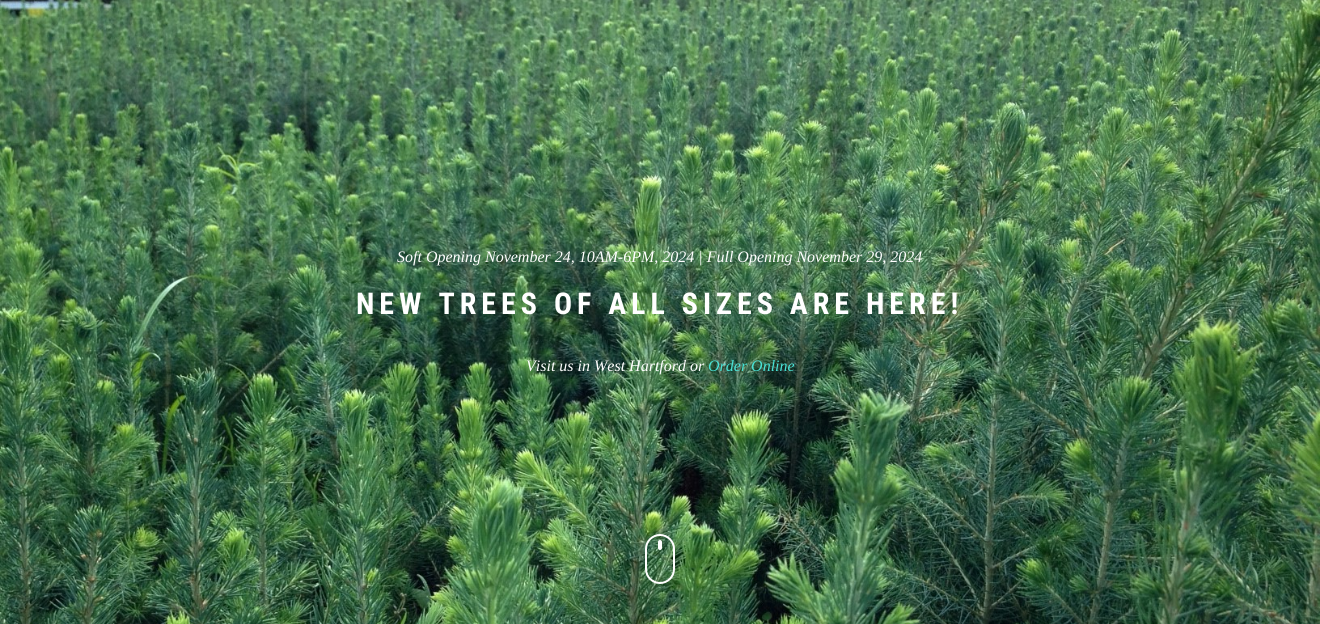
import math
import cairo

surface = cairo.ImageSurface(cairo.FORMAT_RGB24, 1320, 624)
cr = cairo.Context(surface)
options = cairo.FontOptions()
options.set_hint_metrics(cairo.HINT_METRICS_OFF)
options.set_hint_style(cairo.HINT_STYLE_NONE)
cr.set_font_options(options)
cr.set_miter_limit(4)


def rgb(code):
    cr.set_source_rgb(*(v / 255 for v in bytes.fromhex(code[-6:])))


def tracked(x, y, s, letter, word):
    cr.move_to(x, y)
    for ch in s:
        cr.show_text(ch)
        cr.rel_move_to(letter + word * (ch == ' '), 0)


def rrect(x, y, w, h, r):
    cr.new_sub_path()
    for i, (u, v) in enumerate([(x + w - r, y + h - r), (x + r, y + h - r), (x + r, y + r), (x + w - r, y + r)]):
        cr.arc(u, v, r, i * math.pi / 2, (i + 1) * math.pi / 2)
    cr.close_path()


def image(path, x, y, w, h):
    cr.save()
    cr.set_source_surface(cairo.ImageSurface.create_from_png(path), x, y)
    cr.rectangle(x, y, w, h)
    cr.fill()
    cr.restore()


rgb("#ffffff")
cr.paint()
image("img/1.png", 0, 0, 1320, 624)
rrect(646, 535, 28, 48, 14)
rgb("#ffffff")
cr.stroke()
rrect(658, 540, 4, 10, 2)
cr.fill()
cr.select_font_face("Liberation Serif", cairo.FONT_SLANT_ITALIC)
cr.set_font_size(16)
cr.move_to(397, 262)
cr.show_text("Soft Opening November 24, 10AM-6PM, 2024 | Full Opening November 29, 2024")
cr.select_font_face("Roboto Condensed", cairo.FONT_SLANT_NORMAL, cairo.FONT_WEIGHT_BOLD)
cr.set_font_size(30)
tracked(356, 314, "NEW TREES OF ALL SIZES ARE HERE!", 5, 0)
cr.select_font_face("Liberation Serif", cairo.FONT_SLANT_ITALIC)
cr.set_font_size(16)
cr.move_to(526, 371)
cr.show_text("Visit us in West Hartford or")
rgb("#49e2d6")
cr.move_to(708, 371)
cr.show_text("Order Online")
surface.write_to_png("page.png")
